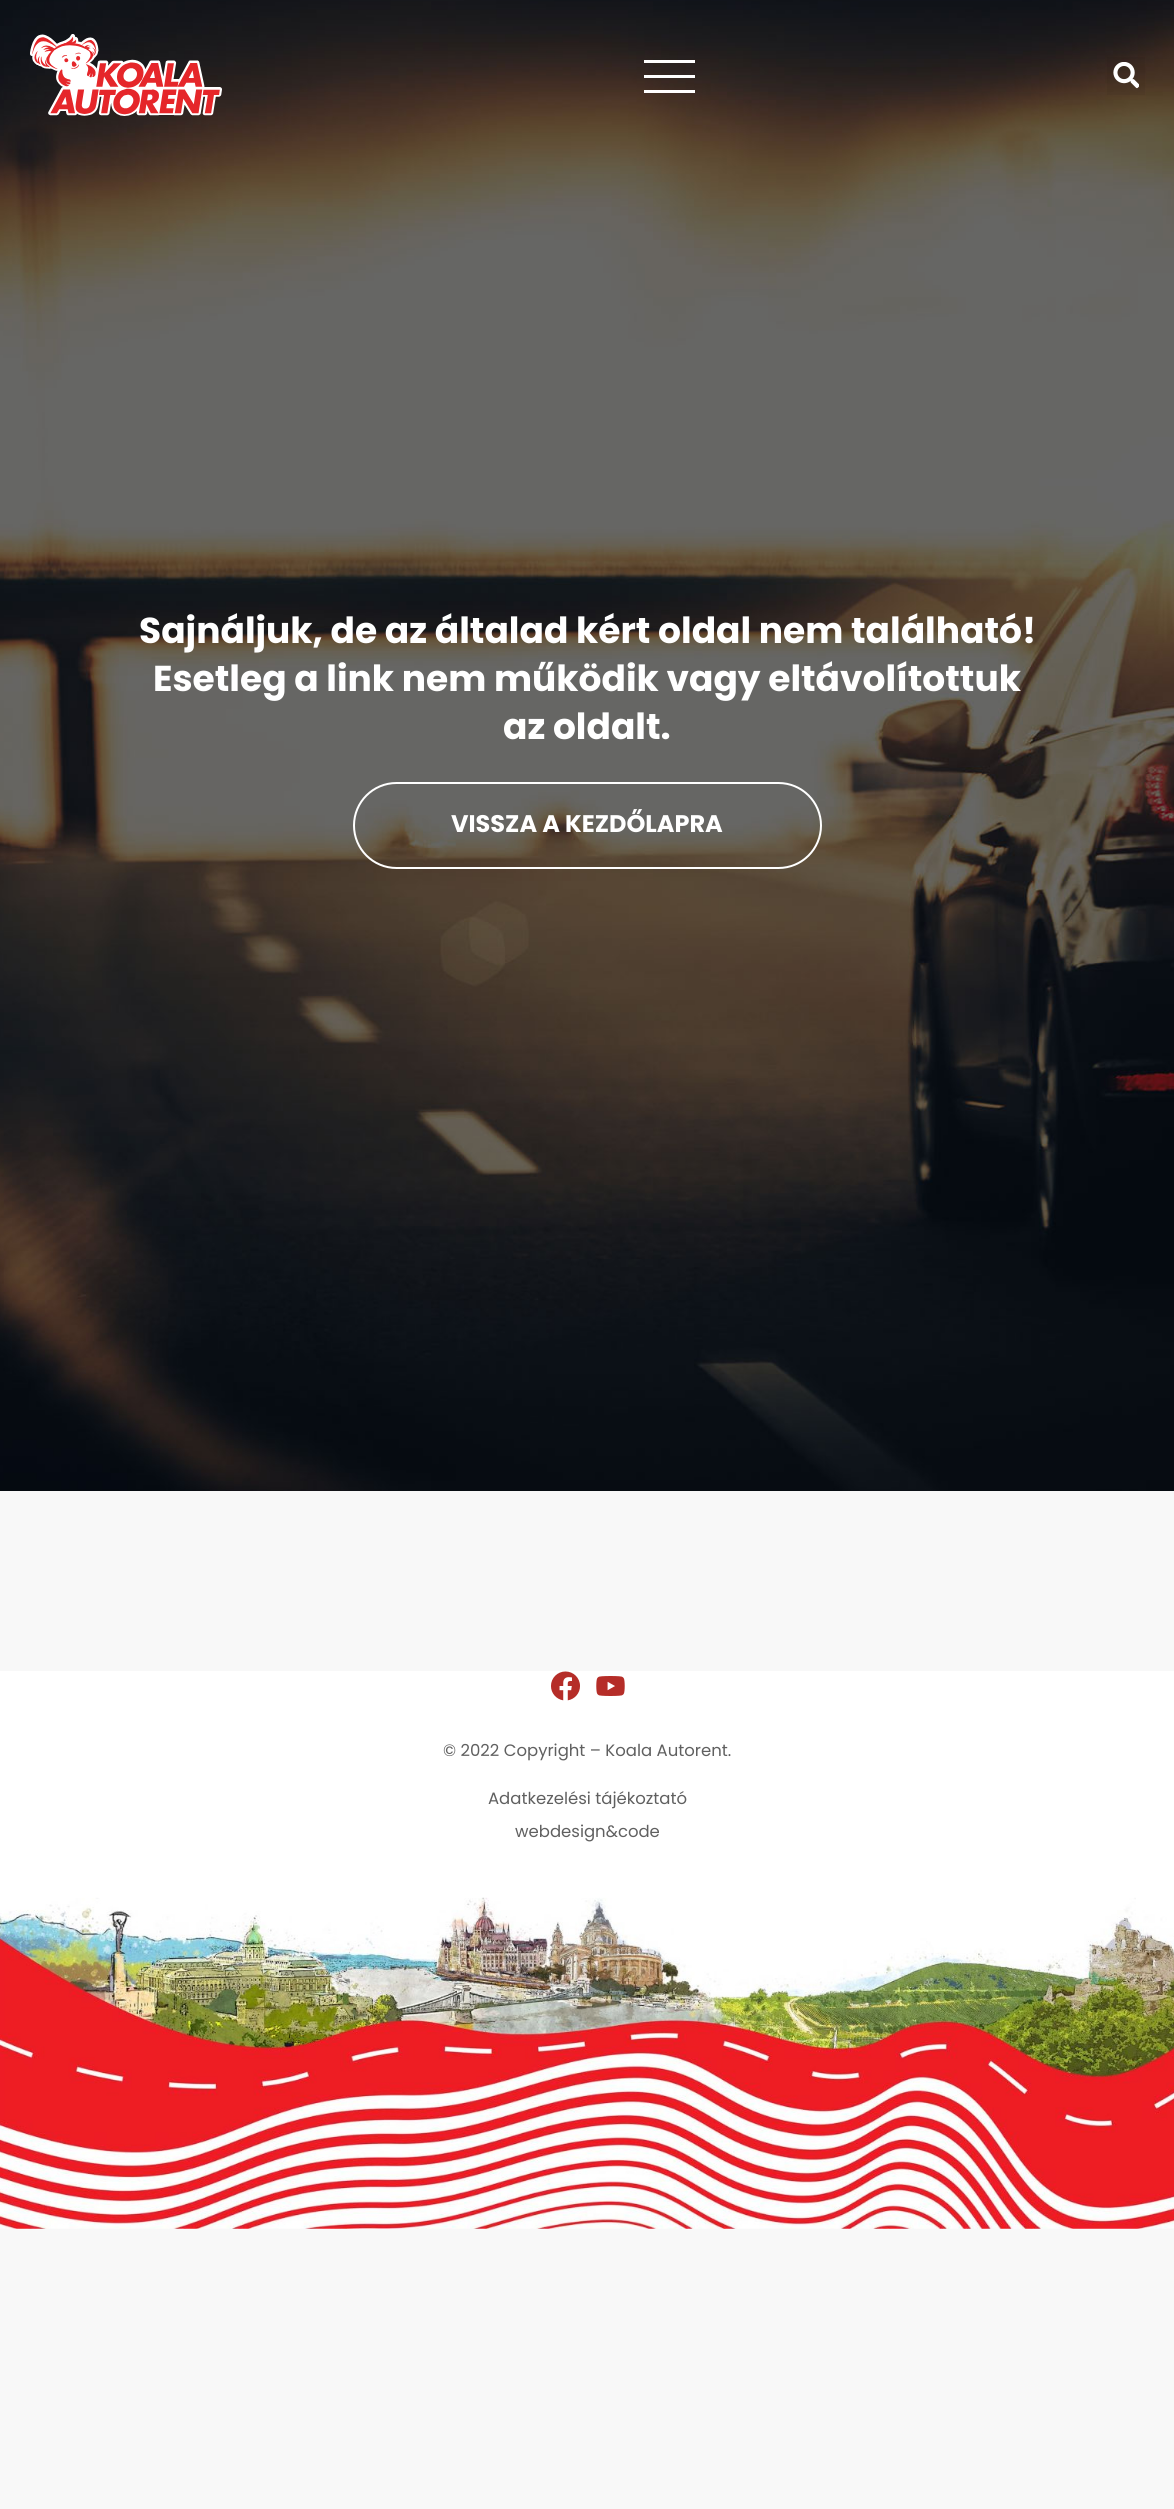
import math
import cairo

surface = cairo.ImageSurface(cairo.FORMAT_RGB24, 1174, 2509)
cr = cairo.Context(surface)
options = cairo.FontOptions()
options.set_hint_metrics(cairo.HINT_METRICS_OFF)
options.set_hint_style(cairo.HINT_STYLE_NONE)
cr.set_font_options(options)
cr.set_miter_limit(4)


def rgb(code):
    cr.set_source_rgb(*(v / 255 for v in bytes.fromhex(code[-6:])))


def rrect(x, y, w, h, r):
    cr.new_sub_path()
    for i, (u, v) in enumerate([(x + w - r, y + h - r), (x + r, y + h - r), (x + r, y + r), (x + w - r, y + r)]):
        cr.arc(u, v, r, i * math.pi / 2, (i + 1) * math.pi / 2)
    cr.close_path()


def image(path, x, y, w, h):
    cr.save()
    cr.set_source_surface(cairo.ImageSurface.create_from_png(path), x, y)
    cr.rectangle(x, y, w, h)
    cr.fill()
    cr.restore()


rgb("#f8f8f8")
cr.paint()
image("img/3.png", 0, 0, 1174, 1491)
image("img/1.png", 30, 34, 192, 82)
cr.save()
cr.rectangle(635, 41, 60, 60)
cr.clip()
rgb("#ffffff")
cr.new_path()
cr.move_to(644, 93)
cr.line_to(644, 90)
cr.line_to(697, 90)
cr.line_to(697, 93)
cr.close_path()
cr.move_to(644, 78)
cr.line_to(644, 75)
cr.line_to(697, 75)
cr.line_to(697, 78)
cr.close_path()
cr.move_to(644, 63)
cr.line_to(644, 60)
cr.line_to(697, 60)
cr.line_to(697, 63)
cr.close_path()
cr.fill()
cr.restore()
cr.set_source_rgba(0, 0, 0, 0.05)
cr.rectangle(1107, 57, 38, 38)
cr.fill()
image("img/2.png", 1113, 62, 26, 27)
rrect(354, 783, 467, 85, 42.5)
rgb("#ffffff")
cr.stroke()
cr.rectangle(0, 1671, 1174, 227)
cr.fill()
image("img/4.png", 551, 1671, 29, 30)
image("img/5.png", 596, 1676, 29, 20)
image("img/6.png", 0, 1897, 1174, 332)
cr.select_font_face("Poppins", cairo.FONT_SLANT_NORMAL, cairo.FONT_WEIGHT_BOLD)
cr.set_font_size(36)
for x, y, s in [
    (139, 643, "Sajnáljuk, de az általad kért oldal nem található!"),
    (153, 691, "Esetleg a link nem működik vagy eltávolítottuk"),
    (503, 739, "az oldalt."),
]:
    cr.move_to(x, y)
    cr.show_text(s)
cr.set_font_size(24)
cr.move_to(451, 832)
cr.show_text("VISSZA A KEZDŐLAPRA")
cr.select_font_face("Poppins")
cr.set_font_size(16.5)
rgb("#606060")
for x, y, s in [
    (443, 1756, "© 2022 Copyright – Koala Autorent."),
    (488, 1804, "Adatkezelési tájékoztató"),
    (515, 1837, "webdesign&code"),
]:
    cr.move_to(x, y)
    cr.show_text(s)
surface.write_to_png("page.png")
